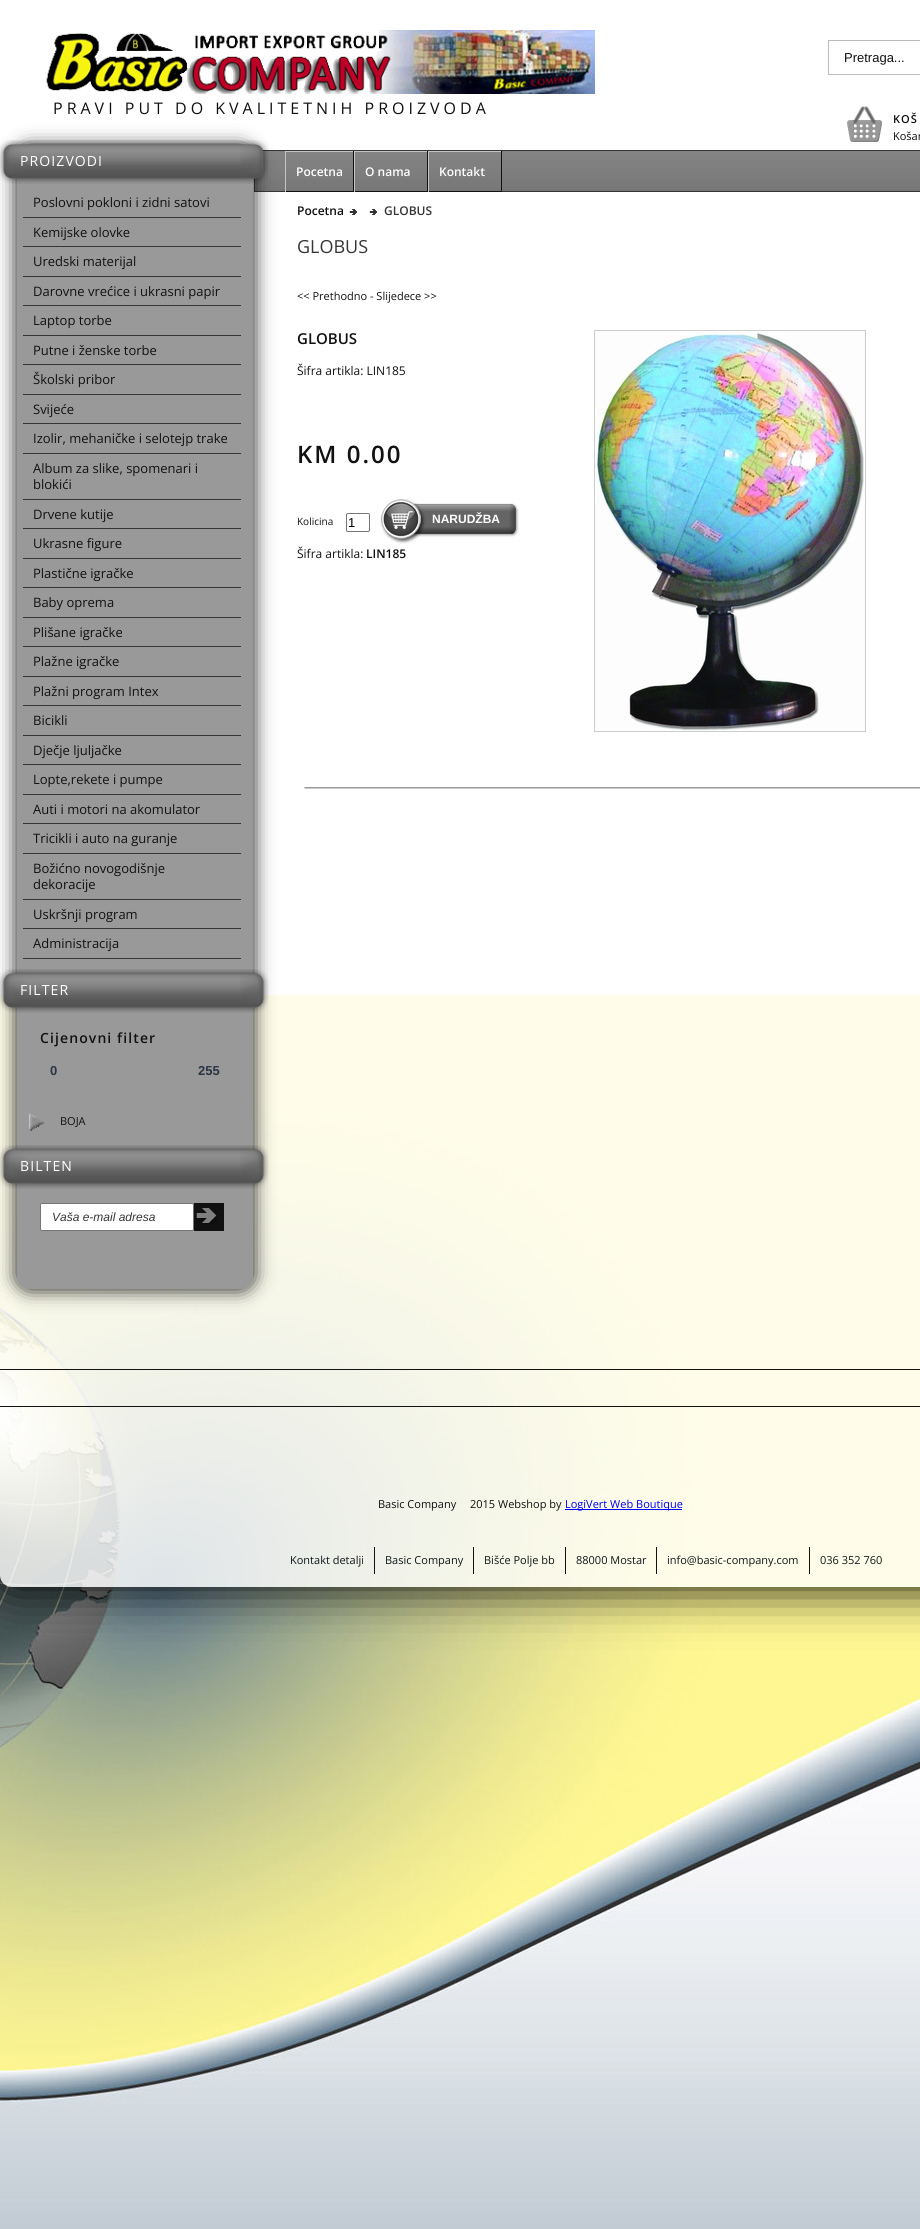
import math
import cairo

surface = cairo.ImageSurface(cairo.FORMAT_RGB24, 920, 2229)
cr = cairo.Context(surface)
options = cairo.FontOptions()
options.set_hint_metrics(cairo.HINT_METRICS_OFF)
options.set_hint_style(cairo.HINT_STYLE_NONE)
cr.set_font_options(options)
cr.set_miter_limit(4)


def rgb(code):
    cr.set_source_rgb(*(v / 255 for v in bytes.fromhex(code[-6:])))


def tracked(x, y, s, letter, word):
    cr.move_to(x, y)
    for ch in s:
        cr.show_text(ch)
        cr.rel_move_to(letter + word * (ch == ' '), 0)


def rrect(x, y, w, h, r):
    cr.new_sub_path()
    for i, (u, v) in enumerate([(x + w - r, y + h - r), (x + r, y + h - r), (x + r, y + r), (x + w - r, y + r)]):
        cr.arc(u, v, r, i * math.pi / 2, (i + 1) * math.pi / 2)
    cr.close_path()


def soft_shadow(x, y, w, h, r, blur, alpha):
    cr.push_group_with_content(cairo.CONTENT_ALPHA)
    cr.set_operator(cairo.OPERATOR_SOURCE)
    for i in range(15, -16, -2):
        e = blur * i / 6
        if min(w, h) + 2 * e > 0:
            cr.set_source_rgba(0, 0, 0, alpha * math.erfc((i - 1) / 8.5) / 2)
            rrect(x - e, y - e, w + 2 * e, h + 2 * e, max(0, min(r + e + blur * .6, min(w, h) / 2 + e)))
            cr.fill()
    cr.mask(cr.pop_group())


def image(path, x, y, w, h):
    cr.save()
    cr.set_source_surface(cairo.ImageSurface.create_from_png(path), x, y)
    cr.rectangle(x, y, w, h)
    cr.fill()
    cr.restore()


rgb("#ffffff")
cr.paint()
image("img/16.png", 0, 995, 920, 1234)
cr.save()
cr.set_fill_rule(cairo.FILL_RULE_EVEN_ODD)
cr.new_path()
cr.move_to(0, 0)
cr.line_to(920, 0)
cr.line_to(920, 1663)
cr.line_to(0, 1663)
cr.close_path()
cr.move_to(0, 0)
cr.line_to(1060, 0)
cr.line_to(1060, 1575)
cr.curve_to(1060, 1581.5, 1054.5, 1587, 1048, 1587)
cr.line_to(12, 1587)
cr.curve_to(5.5, 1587, 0, 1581.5, 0, 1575)
cr.close_path()
cr.clip()
rgb("#000000")
soft_shadow(0, 0, 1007, 1587, 12, 25, 1)
cr.restore()
image("img/1.png", 0, 995, 920, 592)
image("img/2.png", 46, 30, 549, 64)
cr.rectangle(828.5, 40.5, 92, 34)
rgb("#bbbbbb")
cr.set_line_width(1)
cr.stroke()
image("img/3.png", 847, 106, 35, 36)
image("img/4.png", 255, 151, 665, 40)
cr.rectangle(254.5, 150.5, 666, 41)
rgb("#363636")
cr.stroke()
for x, y, w, h, color in [
    (285, 151, 217, 1, "#c5c5c5"),
    (353, 151, 1, 41, "#111111"),
    (285, 191, 69, 1, "#111111"),
    (285, 151, 1, 41, "#c5c5c5"),
    (427, 151, 1, 41, "#111111"),
    (354, 191, 74, 1, "#111111"),
    (354, 151, 1, 41, "#c5c5c5"),
    (501, 151, 1, 41, "#111111"),
    (428, 191, 74, 1, "#111111"),
    (428, 151, 1, 41, "#c5c5c5"),
]:
    rgb(color)
    cr.rectangle(x, y, w, h)
    cr.fill()
rgb("#111111")
soft_shadow(17, 148, 236, 1141, 12, 10, 1)
rgb("#999999")
cr.new_path()
cr.move_to(17, 148)
cr.line_to(253, 148)
cr.line_to(253, 1277)
cr.curve_to(253, 1283.5, 247.5, 1289, 241, 1289)
cr.line_to(29, 1289)
cr.curve_to(22.5, 1289, 17, 1283.5, 17, 1277)
cr.close_path()
cr.fill()
image("img/5.png", 0, 140, 240, 44)
image("img/6.png", 240, 140, 29, 44)
for x, y, w, h, color in [
    (23, 217, 218, 1, "#363636"),
    (23, 246, 218, 1, "#363636"),
    (23, 276, 218, 1, "#363636"),
    (23, 305, 218, 1, "#363636"),
    (23, 335, 218, 1, "#363636"),
    (23, 364, 218, 1, "#363636"),
    (23, 394, 218, 1, "#363636"),
    (23, 423, 218, 1, "#363636"),
    (23, 453, 218, 1, "#363636"),
    (23, 499, 218, 1, "#363636"),
    (23, 528, 218, 1, "#363636"),
    (23, 558, 218, 1, "#363636"),
    (23, 587, 218, 1, "#363636"),
    (23, 617, 218, 1, "#363636"),
    (23, 646, 218, 1, "#363636"),
    (23, 676, 218, 1, "#363636"),
    (23, 705, 218, 1, "#363636"),
    (23, 735, 218, 1, "#363636"),
    (23, 764, 218, 1, "#363636"),
    (23, 794, 218, 1, "#363636"),
    (23, 823, 218, 1, "#363636"),
    (23, 853, 218, 1, "#363636"),
    (23, 899, 218, 1, "#363636"),
    (23, 928, 218, 1, "#363636"),
    (23, 958, 218, 1, "#363636"),
]:
    rgb(color)
    cr.rectangle(x, y, w, h)
    cr.fill()
image("img/7.png", 0, 969, 240, 44)
image("img/8.png", 240, 969, 29, 44)
image("img/9.png", 29, 1114, 16, 17)
image("img/10.png", 0, 1145, 240, 44)
image("img/11.png", 240, 1145, 29, 44)
rgb("#ffffff")
rrect(40.5, 1203.5, 153, 27, 1.5)
cr.fill_preserve()
rgb("#767676")
cr.stroke()
rgb("#111111")
cr.rectangle(194, 1203, 30, 28)
cr.fill()
image("img/12.png", 196, 1208, 21, 16)
image("img/13.png", 349, 209, 8, 6)
image("img/13.png", 369, 209, 8, 6)
rrect(346.5, 513.5, 23, 18, 1.5)
rgb("#767676")
cr.stroke()
image("img/14.png", 380, 499, 150, 46)
cr.rectangle(594.5, 330.5, 271, 401)
rgb("#cccccc")
cr.stroke()
image("img/15.png", 595, 331, 270, 400)
rgb("#999999")
cr.new_path()
cr.move_to(304, 787)
cr.line_to(305, 788)
cr.line_to(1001, 788)
cr.line_to(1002, 787)
cr.line_to(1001, 787)
cr.close_path()
cr.fill()
rgb("#cccccc")
cr.new_path()
cr.move_to(305, 788)
cr.line_to(304, 788)
cr.line_to(305, 789)
cr.line_to(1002, 789)
cr.line_to(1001, 788)
cr.close_path()
cr.fill()
cr.new_path()
cr.move_to(305, 788)
cr.line_to(304, 787)
cr.line_to(304, 788)
cr.line_to(304.5, 788.5)
cr.close_path()
cr.fill()
for x, y, w, h, color in [
    (0, 1369, 920, 1, "#111111"),
    (0, 1406, 920, 1, "#111111"),
    (565, 1509, 117, 1, "#0000ff"),
    (374, 1547, 1, 27, "#111111"),
    (473, 1547, 1, 27, "#111111"),
    (565, 1547, 1, 27, "#111111"),
    (656, 1547, 1, 27, "#111111"),
    (809, 1547, 1, 27, "#111111"),
]:
    rgb(color)
    cr.rectangle(x, y, w, h)
    cr.fill()
cr.select_font_face("Liberation Sans")
cr.set_font_size(13)
cr.move_to(844, 62)
cr.show_text("Pretraga...")
cr.select_font_face("Open Sans")
cr.set_font_size(16)
tracked(53, 114, "PRAVI PUT DO KVALITETNIH PROIZVODA", 4, 0)
cr.select_font_face("Open Sans SemiBold")
cr.set_font_size(11)
tracked(893, 123, "KOŠ", 1, 0)
cr.select_font_face("Open Sans")
cr.move_to(893, 140)
cr.show_text("Košar")
cr.select_font_face("Open Sans SemiBold")
cr.set_font_size(12)
rgb("#ffffff")
for x, y, s in [
    (296, 176, "Pocetna"),
    (365, 176, "O nama"),
    (439, 176, "Kontakt"),
]:
    cr.move_to(x, y)
    cr.show_text(s)
cr.select_font_face("Open Sans")
cr.set_font_size(14)
tracked(20, 166, "PROIZVODI", 1.1, 0)
cr.set_font_size(13)
rgb("#111111")
for x, y, s in [
    (33, 207, "Poslovni pokloni i zidni satovi"),
    (33, 237, "Kemijske olovke"),
    (33, 266, "Uredski materijal"),
    (33, 296, "Darovne vrećice i ukrasni papir"),
    (33, 325, "Laptop torbe"),
    (33, 355, "Putne i ženske torbe"),
    (33, 384, "Školski pribor"),
    (33, 414, "Svijeće"),
    (33, 443, "Izolir, mehaničke i selotejp trake"),
    (33, 473, "Album za slike, spomenari i"),
    (33, 489, "blokići"),
    (33, 519, "Drvene kutije"),
    (33, 548, "Ukrasne figure"),
    (33, 578, "Plastične igračke"),
    (33, 607, "Baby oprema"),
    (33, 637, "Plišane igračke"),
    (33, 666, "Plažne igračke"),
    (33, 696, "Plažni program Intex"),
    (33, 725, "Bicikli"),
    (33, 755, "Dječje ljuljačke"),
    (33, 784, "Lopte,rekete i pumpe"),
    (33, 814, "Auti i motori na akomulator"),
    (33, 843, "Tricikli i auto na guranje"),
    (33, 873, "Božićno novogodišnje"),
    (33, 889, "dekoracije"),
    (33, 919, "Uskršnji program"),
    (33, 948, "Administracija"),
]:
    cr.move_to(x, y)
    cr.show_text(s)
cr.set_font_size(14)
rgb("#ffffff")
tracked(20, 995, "FILTER", 1.1, 0)
cr.select_font_face("Open Sans SemiBold")
rgb("#111111")
tracked(40, 1043, "Cijenovni filter", 1.1, 0)
cr.select_font_face("Liberation Sans", cairo.FONT_SLANT_NORMAL, cairo.FONT_WEIGHT_BOLD)
cr.set_font_size(13)
rgb("#2c3443")
cr.move_to(50, 1075)
cr.show_text("0")
cr.move_to(198, 1075)
cr.show_text("255")
cr.select_font_face("Open Sans")
cr.set_font_size(11)
rgb("#111111")
cr.move_to(60, 1125)
cr.show_text("BOJA")
cr.set_font_size(14)
rgb("#ffffff")
tracked(20, 1171, "BILTEN", 1.1, 0)
cr.select_font_face("Liberation Sans", cairo.FONT_SLANT_ITALIC)
cr.set_font_size(12)
rgb("#363636")
cr.move_to(52, 1221)
cr.show_text("Vaša e-mail adresa")
cr.select_font_face("Open Sans SemiBold")
rgb("#111111")
cr.move_to(297, 215)
cr.show_text("Pocetna")
rgb("#363636")
cr.move_to(384, 215)
cr.show_text("GLOBUS")
cr.select_font_face("Open Sans")
cr.set_font_size(18)
cr.move_to(297, 253)
cr.show_text("GLOBUS")
cr.set_font_size(11)
rgb("#111111")
cr.move_to(297, 300)
cr.show_text("<< Prethodno - Slijedece >>")
cr.select_font_face("Open Sans SemiBold")
cr.set_font_size(15)
cr.move_to(297, 344)
cr.show_text("GLOBUS")
cr.select_font_face("Open Sans")
cr.set_font_size(12)
cr.move_to(297, 375)
cr.show_text("Šifra artikla: LIN185")
cr.select_font_face("Open Sans SemiBold")
cr.set_font_size(24)
tracked(297, 463, "KM 0.00", 2, 0)
cr.select_font_face("Open Sans")
cr.set_font_size(10)
cr.move_to(297, 525)
cr.show_text("Kolicina")
cr.select_font_face("Liberation Sans")
cr.set_font_size(13)
rgb("#000000")
cr.move_to(348, 527)
cr.show_text("1")
cr.select_font_face("Liberation Sans", cairo.FONT_SLANT_NORMAL, cairo.FONT_WEIGHT_BOLD)
cr.set_font_size(12)
rgb("#ffffff")
cr.move_to(432, 523)
cr.show_text("NARUDŽBA")
cr.select_font_face("Open Sans")
rgb("#111111")
cr.move_to(297, 558)
cr.show_text("Šifra artikla:")
cr.select_font_face("Open Sans SemiBold")
cr.move_to(366, 558)
cr.show_text("LIN185")
cr.select_font_face("Open Sans")
cr.set_font_size(11)
cr.move_to(378, 1508)
cr.show_text("Basic Company")
cr.move_to(470, 1508)
cr.show_text("2015 Webshop by")
rgb("#0000ff")
cr.move_to(565, 1508)
cr.show_text("LogiVert Web Boutique")
rgb("#10181b")
for x, y, s in [
    (290, 1564, "Kontakt detalji"),
    (385, 1564, "Basic Company"),
    (484, 1564, "Bišće Polje bb"),
    (576, 1564, "88000 Mostar"),
    (667, 1564, "info@basic-company.com"),
    (820, 1564, "036 352 760"),
]:
    cr.move_to(x, y)
    cr.show_text(s)
surface.write_to_png("page.png")
